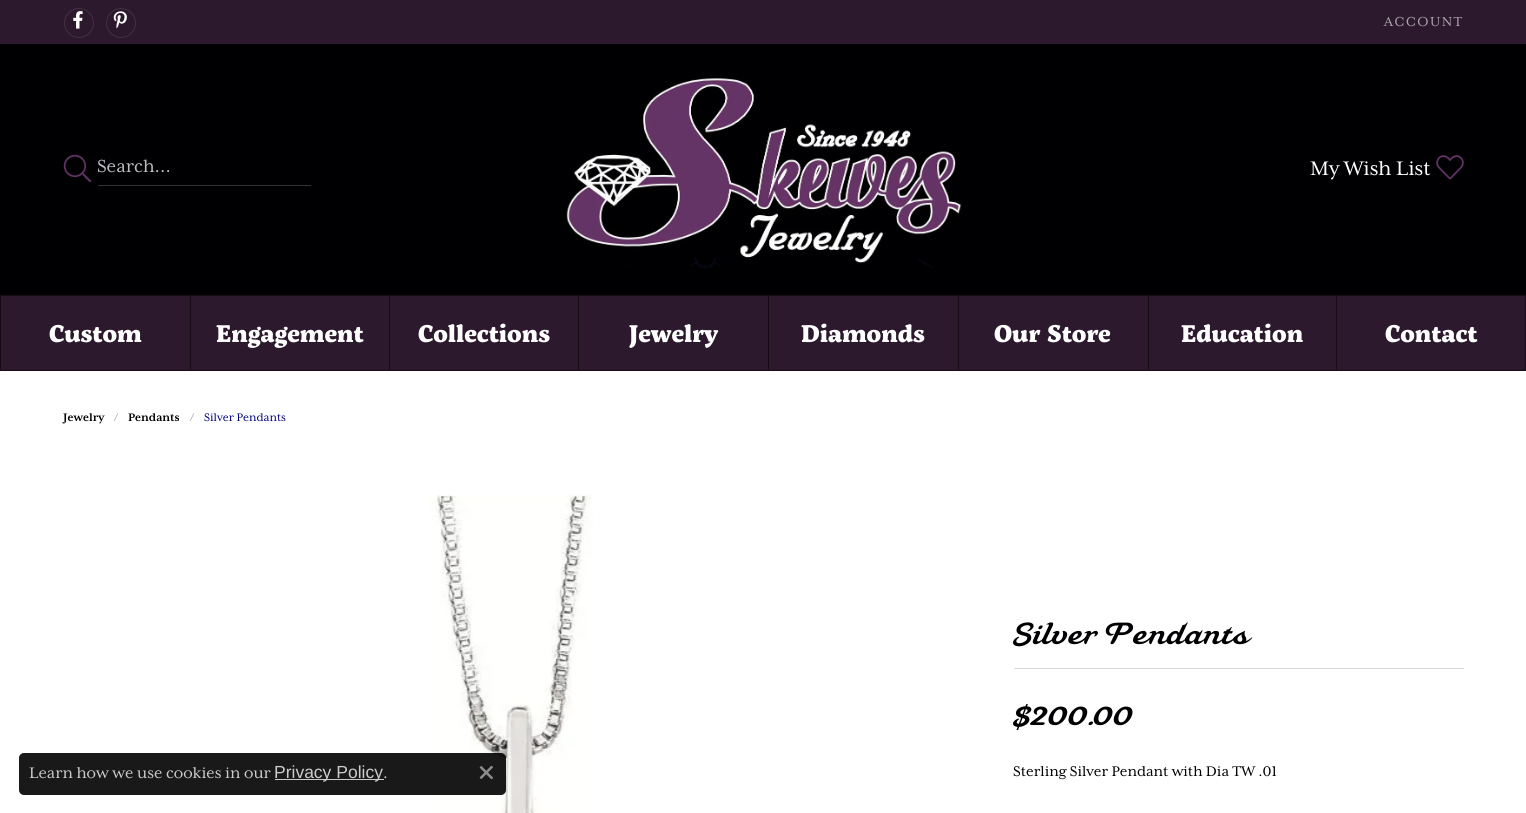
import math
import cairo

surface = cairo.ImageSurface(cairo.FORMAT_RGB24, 1526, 813)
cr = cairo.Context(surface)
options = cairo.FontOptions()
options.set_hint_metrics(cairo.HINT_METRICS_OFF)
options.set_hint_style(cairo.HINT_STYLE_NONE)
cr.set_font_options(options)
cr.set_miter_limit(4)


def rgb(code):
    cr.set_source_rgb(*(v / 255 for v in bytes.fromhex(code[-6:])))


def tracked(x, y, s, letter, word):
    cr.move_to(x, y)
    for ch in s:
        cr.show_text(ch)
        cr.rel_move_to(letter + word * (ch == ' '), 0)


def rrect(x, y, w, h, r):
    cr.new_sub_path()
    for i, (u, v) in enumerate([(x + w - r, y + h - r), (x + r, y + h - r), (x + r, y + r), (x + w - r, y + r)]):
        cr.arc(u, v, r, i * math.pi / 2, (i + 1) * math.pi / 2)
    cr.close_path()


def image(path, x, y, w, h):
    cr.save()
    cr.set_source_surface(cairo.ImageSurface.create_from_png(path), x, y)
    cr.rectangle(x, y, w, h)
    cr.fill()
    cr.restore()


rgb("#000002")
cr.paint()
rgb("#2c192d")
cr.rectangle(0, 0, 1526, 44)
cr.fill()
cr.arc(79, 23, 14.5, 0, 2 * math.pi)
rgb("#413042")
cr.set_line_width(1)
cr.stroke()
image("img/1.png", 73, 11, 10, 18)
cr.arc(121, 23, 14.5, 0, 2 * math.pi)
cr.stroke()
image("img/2.png", 113, 11, 14, 18)
image("img/3.png", 63, 154, 29, 29)
rgb("#333335")
cr.rectangle(98, 185, 213, 1)
cr.fill()
image("img/4.png", 566, 78, 396, 191)
image("img/5.png", 1436, 155, 28, 25)
rgb("#2c192d")
cr.rectangle(0, 295, 1525, 76)
cr.fill()
rgb("#160d17")
cr.new_path()
cr.move_to(0, 295)
cr.line_to(190, 295)
cr.line_to(190, 296)
cr.line_to(1, 296)
cr.close_path()
cr.fill()
cr.new_path()
cr.move_to(190, 371)
cr.line_to(0, 371)
cr.line_to(1, 370)
cr.line_to(190, 370)
cr.close_path()
cr.fill()
cr.set_source_rgba(0, 0, 0, 0.5)
cr.new_path()
cr.move_to(0, 371)
cr.line_to(0, 295)
cr.line_to(1, 296)
cr.line_to(1, 370)
cr.close_path()
cr.fill()
rgb("#160d17")
cr.new_path()
cr.move_to(190, 295)
cr.line_to(389, 295)
cr.line_to(389, 296)
cr.line_to(191, 296)
cr.close_path()
cr.fill()
cr.new_path()
cr.move_to(389, 371)
cr.line_to(190, 371)
cr.line_to(191, 370)
cr.line_to(389, 370)
cr.close_path()
cr.fill()
cr.set_source_rgba(0, 0, 0, 0.5)
cr.new_path()
cr.move_to(190, 371)
cr.line_to(190, 295)
cr.line_to(191, 296)
cr.line_to(191, 370)
cr.close_path()
cr.fill()
rgb("#160d17")
cr.new_path()
cr.move_to(389, 295)
cr.line_to(578, 295)
cr.line_to(578, 296)
cr.line_to(390, 296)
cr.close_path()
cr.fill()
cr.new_path()
cr.move_to(578, 371)
cr.line_to(389, 371)
cr.line_to(390, 370)
cr.line_to(578, 370)
cr.close_path()
cr.fill()
cr.set_source_rgba(0, 0, 0, 0.5)
cr.new_path()
cr.move_to(389, 371)
cr.line_to(389, 295)
cr.line_to(390, 296)
cr.line_to(390, 370)
cr.close_path()
cr.fill()
rgb("#160d17")
cr.new_path()
cr.move_to(578, 295)
cr.line_to(768, 295)
cr.line_to(768, 296)
cr.line_to(579, 296)
cr.close_path()
cr.fill()
cr.new_path()
cr.move_to(768, 371)
cr.line_to(578, 371)
cr.line_to(579, 370)
cr.line_to(768, 370)
cr.close_path()
cr.fill()
cr.set_source_rgba(0, 0, 0, 0.5)
cr.new_path()
cr.move_to(578, 371)
cr.line_to(578, 295)
cr.line_to(579, 296)
cr.line_to(579, 370)
cr.close_path()
cr.fill()
rgb("#160d17")
cr.new_path()
cr.move_to(768, 295)
cr.line_to(958, 295)
cr.line_to(958, 296)
cr.line_to(769, 296)
cr.close_path()
cr.fill()
cr.new_path()
cr.move_to(958, 371)
cr.line_to(768, 371)
cr.line_to(769, 370)
cr.line_to(958, 370)
cr.close_path()
cr.fill()
cr.set_source_rgba(0, 0, 0, 0.5)
cr.new_path()
cr.move_to(768, 371)
cr.line_to(768, 295)
cr.line_to(769, 296)
cr.line_to(769, 370)
cr.close_path()
cr.fill()
rgb("#160d17")
cr.new_path()
cr.move_to(958, 295)
cr.line_to(1148, 295)
cr.line_to(1148, 296)
cr.line_to(959, 296)
cr.close_path()
cr.fill()
cr.new_path()
cr.move_to(1148, 371)
cr.line_to(958, 371)
cr.line_to(959, 370)
cr.line_to(1148, 370)
cr.close_path()
cr.fill()
cr.set_source_rgba(0, 0, 0, 0.5)
cr.new_path()
cr.move_to(958, 371)
cr.line_to(958, 295)
cr.line_to(959, 296)
cr.line_to(959, 370)
cr.close_path()
cr.fill()
rgb("#160d17")
cr.new_path()
cr.move_to(1148, 295)
cr.line_to(1336, 295)
cr.line_to(1336, 296)
cr.line_to(1149, 296)
cr.close_path()
cr.fill()
cr.new_path()
cr.move_to(1336, 371)
cr.line_to(1148, 371)
cr.line_to(1149, 370)
cr.line_to(1336, 370)
cr.close_path()
cr.fill()
cr.set_source_rgba(0, 0, 0, 0.5)
cr.new_path()
cr.move_to(1148, 371)
cr.line_to(1148, 295)
cr.line_to(1149, 296)
cr.line_to(1149, 370)
cr.close_path()
cr.fill()
cr.rectangle(1336.5, 295.5, 189, 75)
rgb("#160d17")
cr.stroke()
rgb("#ffffff")
cr.rectangle(0, 371, 1526, 442)
cr.fill()
image("img/6.png", 428, 494, 165, 319)
rgb("#d9d9d9")
cr.rectangle(1014, 668, 450, 1)
cr.fill()
cr.set_source_rgba(0, 0, 0.008, 0.9)
rrect(19, 753, 487, 42, 5)
cr.fill()
rgb("#cccccc")
cr.rectangle(275, 779, 109, 1)
cr.fill()
image("img/7.png", 479, 765, 14, 15)
cr.select_font_face("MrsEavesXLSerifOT")
cr.set_font_size(15)
rgb("#aba3ab")
tracked(1384, 26, "ACCOUNT", 1.5, 0)
cr.save()
cr.rectangle(98, 156, 180, 20)
cr.clip()
cr.set_font_size(20)
rgb("#bdbdbd")
cr.move_to(97, 172)
cr.show_text("Search...")
cr.restore()
cr.set_font_size(22.5)
rgb("#ffffff")
cr.move_to(1310, 175)
cr.show_text("My Wish List")
cr.select_font_face("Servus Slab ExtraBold")
cr.set_font_size(24)
for x, y, s in [
    (49, 342, "Custom"),
    (216, 342, "Engagement"),
    (418, 342, "Collections"),
    (629, 342, "Jewelry"),
    (801, 342, "Diamonds"),
    (994, 342, "Our Store"),
    (1181, 342, "Education"),
    (1385, 342, "Contact"),
]:
    cr.move_to(x, y)
    cr.show_text(s)
cr.select_font_face("MrsEavesXLSerifOT", cairo.FONT_SLANT_NORMAL, cairo.FONT_WEIGHT_BOLD)
cr.set_font_size(12.5)
rgb("#000002")
cr.move_to(63, 421)
cr.show_text("Jewelry")
cr.select_font_face("MrsEavesXLSerifOT")
rgb("#8d8d8d")
cr.move_to(114, 421)
cr.show_text("/")
cr.select_font_face("MrsEavesXLSerifOT", cairo.FONT_SLANT_NORMAL, cairo.FONT_WEIGHT_BOLD)
rgb("#000002")
cr.move_to(128, 421)
cr.show_text("Pendants")
cr.select_font_face("MrsEavesXLSerifOT")
rgb("#8d8d8d")
cr.move_to(190, 421)
cr.show_text("/")
rgb("#000082")
cr.move_to(204, 421)
cr.show_text("Silver Pendants")
cr.select_font_face("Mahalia")
cr.set_font_size(30)
rgb("#000002")
cr.move_to(1013, 644)
cr.show_text("Silver Pendants")
cr.select_font_face("Mahalia", cairo.FONT_SLANT_NORMAL, cairo.FONT_WEIGHT_BOLD)
cr.set_font_size(26)
cr.move_to(1013, 725)
cr.show_text("$200.00")
cr.select_font_face("MrsEavesXLSerifOT")
cr.set_font_size(16)
cr.move_to(1013, 776)
cr.show_text("Sterling Silver Pendant with Dia TW .01")
cr.set_font_size(17.5)
rgb("#cccccc")
cr.move_to(29, 778)
cr.show_text("Learn how we use cookies in our")
cr.select_font_face("Liberation Sans")
cr.move_to(274, 778)
cr.show_text("Privacy Policy")
cr.select_font_face("MrsEavesXLSerifOT")
cr.move_to(383, 778)
cr.show_text(".")
surface.write_to_png("page.png")
